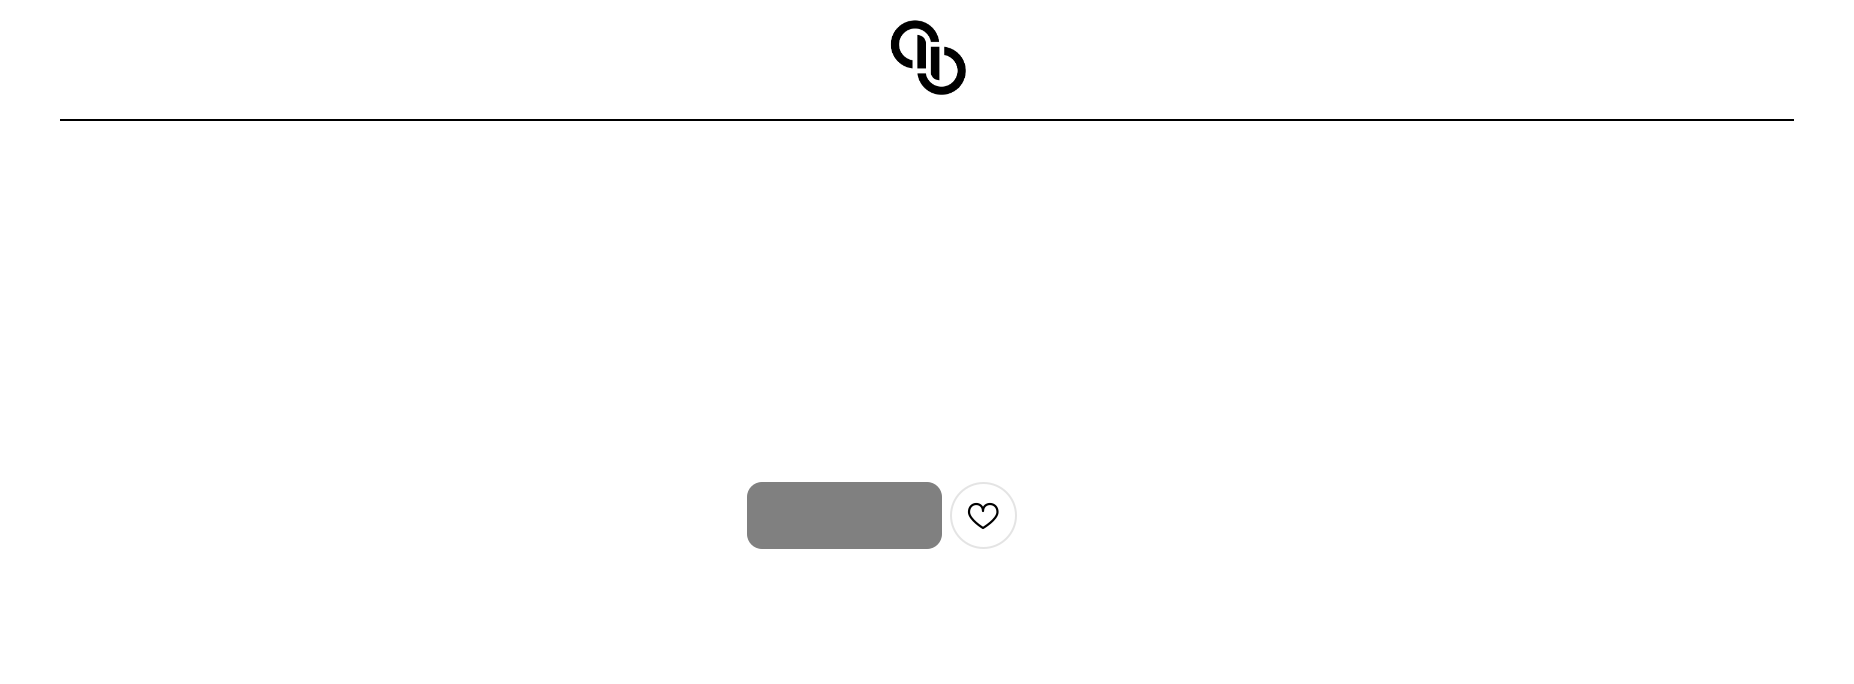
import math
import cairo

surface = cairo.ImageSurface(cairo.FORMAT_RGB24, 1854, 684)
cr = cairo.Context(surface)
options = cairo.FontOptions()
options.set_hint_metrics(cairo.HINT_METRICS_OFF)
options.set_hint_style(cairo.HINT_STYLE_NONE)
cr.set_font_options(options)
cr.set_miter_limit(4)


def rgb(code):
    cr.set_source_rgb(*(v / 255 for v in bytes.fromhex(code[-6:])))


def rrect(x, y, w, h, r):
    cr.new_sub_path()
    for i, (u, v) in enumerate([(x + w - r, y + h - r), (x + r, y + h - r), (x + r, y + r), (x + w - r, y + r)]):
        cr.arc(u, v, r, i * math.pi / 2, (i + 1) * math.pi / 2)
    cr.close_path()


def image(path, x, y, w, h):
    cr.save()
    cr.set_source_surface(cairo.ImageSurface.create_from_png(path), x, y)
    cr.rectangle(x, y, w, h)
    cr.fill()
    cr.restore()


rgb("#ffffff")
cr.paint()
image("img/1.png", 890, 20, 76, 75)
rgb("#000000")
cr.rectangle(60, 119, 1734, 2)
cr.fill()
rgb("#808080")
rrect(747, 482, 195, 67, 15)
cr.fill()
cr.arc(983.5, 515.5, 32.5, 0, 2 * math.pi)
rgb("#e4e4e4")
cr.stroke()
cr.new_path()
cr.move_to(997.5, 512)
cr.curve_to(997.5, 519.5, 983, 528, 983, 528)
cr.curve_to(983, 528, 969, 519.5, 969, 512)
cr.curve_to(969, 501.5, 983, 501.5, 983, 511)
cr.curve_to(983, 501.5, 997.5, 501.5, 997.5, 512)
cr.close_path()
rgb("#000000")
cr.set_line_width(2.2)
cr.set_line_join(cairo.LINE_JOIN_ROUND)
cr.stroke()
surface.write_to_png("page.png")
